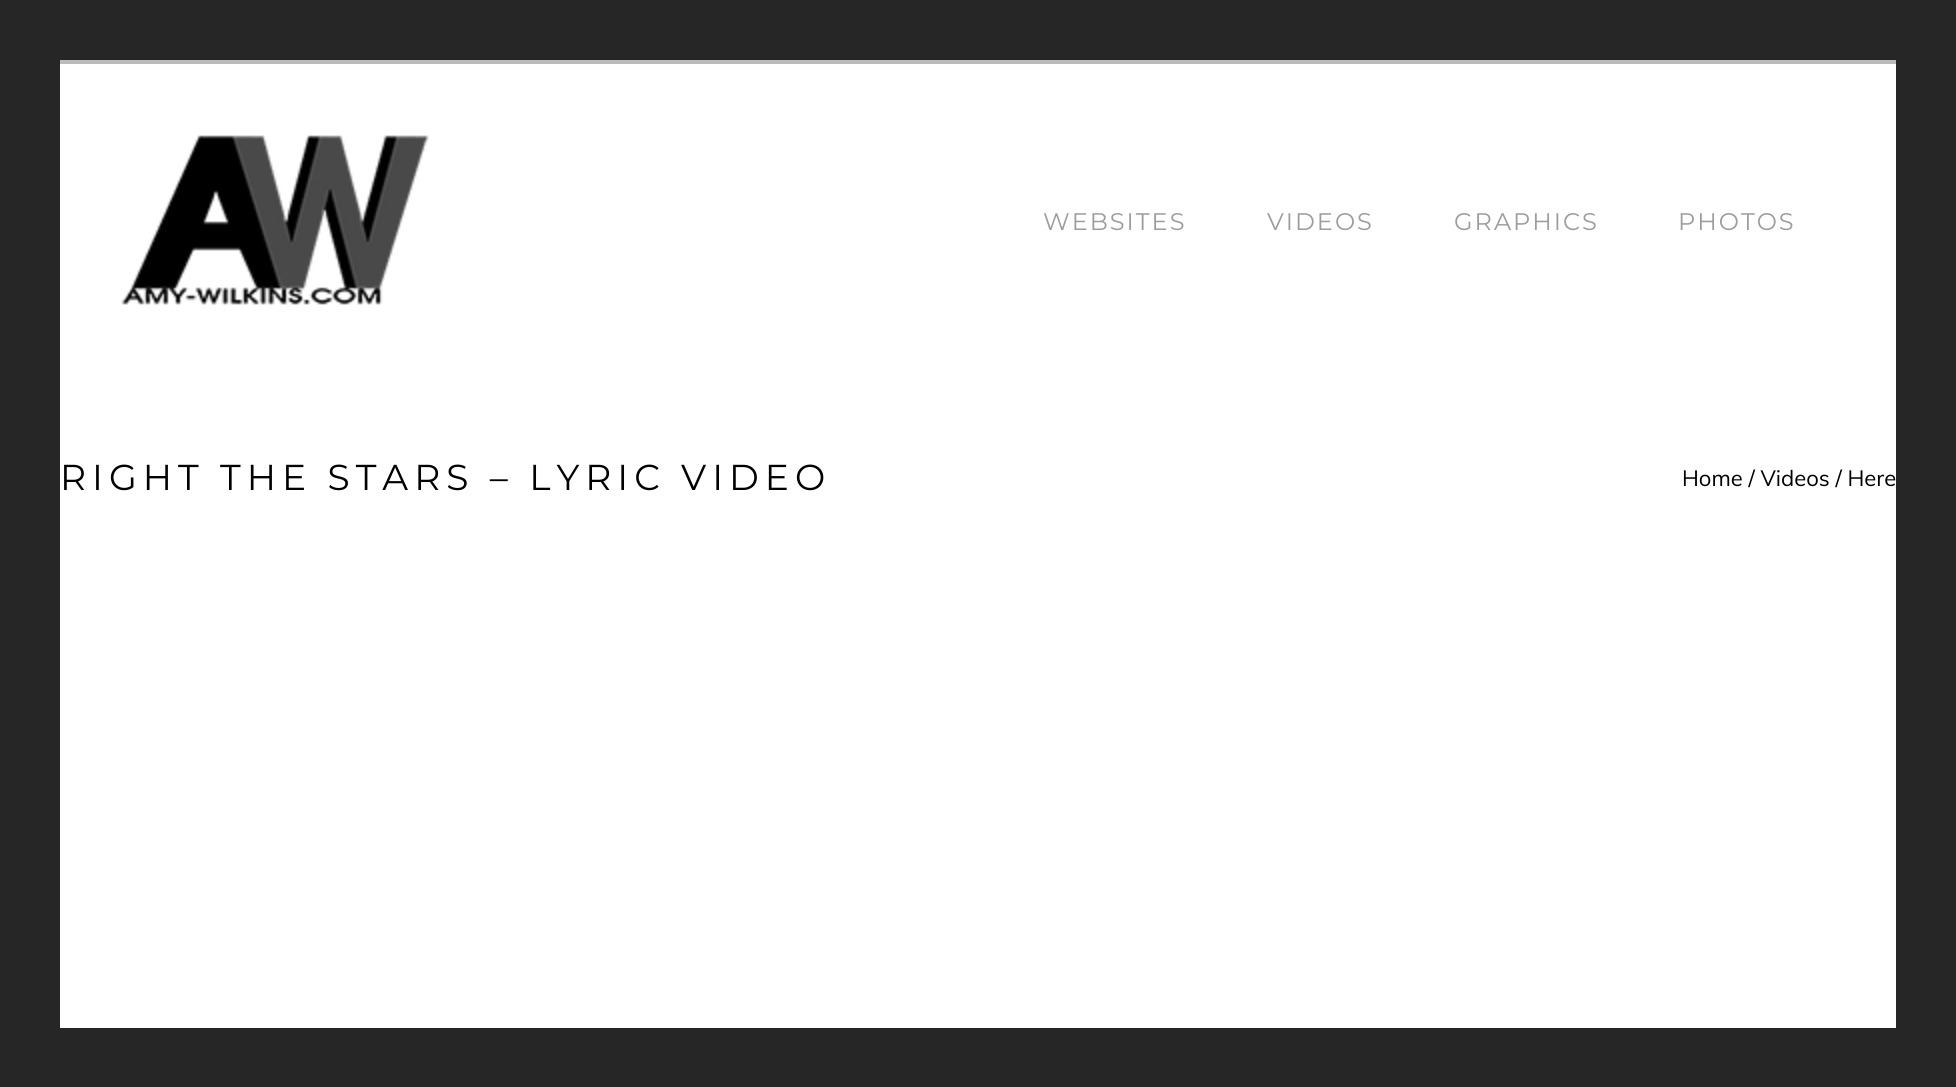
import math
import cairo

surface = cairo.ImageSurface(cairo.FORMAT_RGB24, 1956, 1087)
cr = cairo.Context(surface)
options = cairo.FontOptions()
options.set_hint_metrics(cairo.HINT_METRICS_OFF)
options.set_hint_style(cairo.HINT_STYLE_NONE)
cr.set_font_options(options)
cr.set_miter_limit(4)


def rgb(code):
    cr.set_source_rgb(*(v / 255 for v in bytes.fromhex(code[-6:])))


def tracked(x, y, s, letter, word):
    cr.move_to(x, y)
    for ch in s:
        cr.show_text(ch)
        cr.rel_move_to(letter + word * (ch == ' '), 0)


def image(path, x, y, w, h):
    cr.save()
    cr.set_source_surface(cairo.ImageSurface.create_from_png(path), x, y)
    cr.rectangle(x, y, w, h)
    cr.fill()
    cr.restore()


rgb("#ffffff")
cr.paint()
for x, y, w, h, color in [
    (0, 0, 60, 1087, "#262626"),
    (60, 0, 1836, 60, "#262626"),
    (1896, 0, 60, 1028, "#262626"),
    (60, 1028, 1896, 59, "#262626"),
]:
    rgb(color)
    cr.rectangle(x, y, w, h)
    cr.fill()
image("img/1.png", 121, 135, 308, 170)
rgb("#bbbbbb")
cr.rectangle(60, 60, 1836, 4)
cr.fill()
cr.select_font_face("Montserrat")
cr.set_font_size(24)
rgb("#9c9c9c")
for x, y, s in [
    (1043, 230, "WEBSITES"),
    (1267, 230, "VIDEOS"),
    (1454, 230, "GRAPHICS"),
    (1678, 230, "PHOTOS"),
]:
    tracked(x, y, s, 2, 0)
cr.set_font_size(36)
rgb("#000000")
tracked(60, 490, "RIGHT THE STARS – LYRIC VIDEO", 6, 0)
cr.select_font_face("Muli")
cr.set_font_size(22)
cr.move_to(1682, 486)
cr.show_text("Home / Videos / Here")
surface.write_to_png("page.png")
